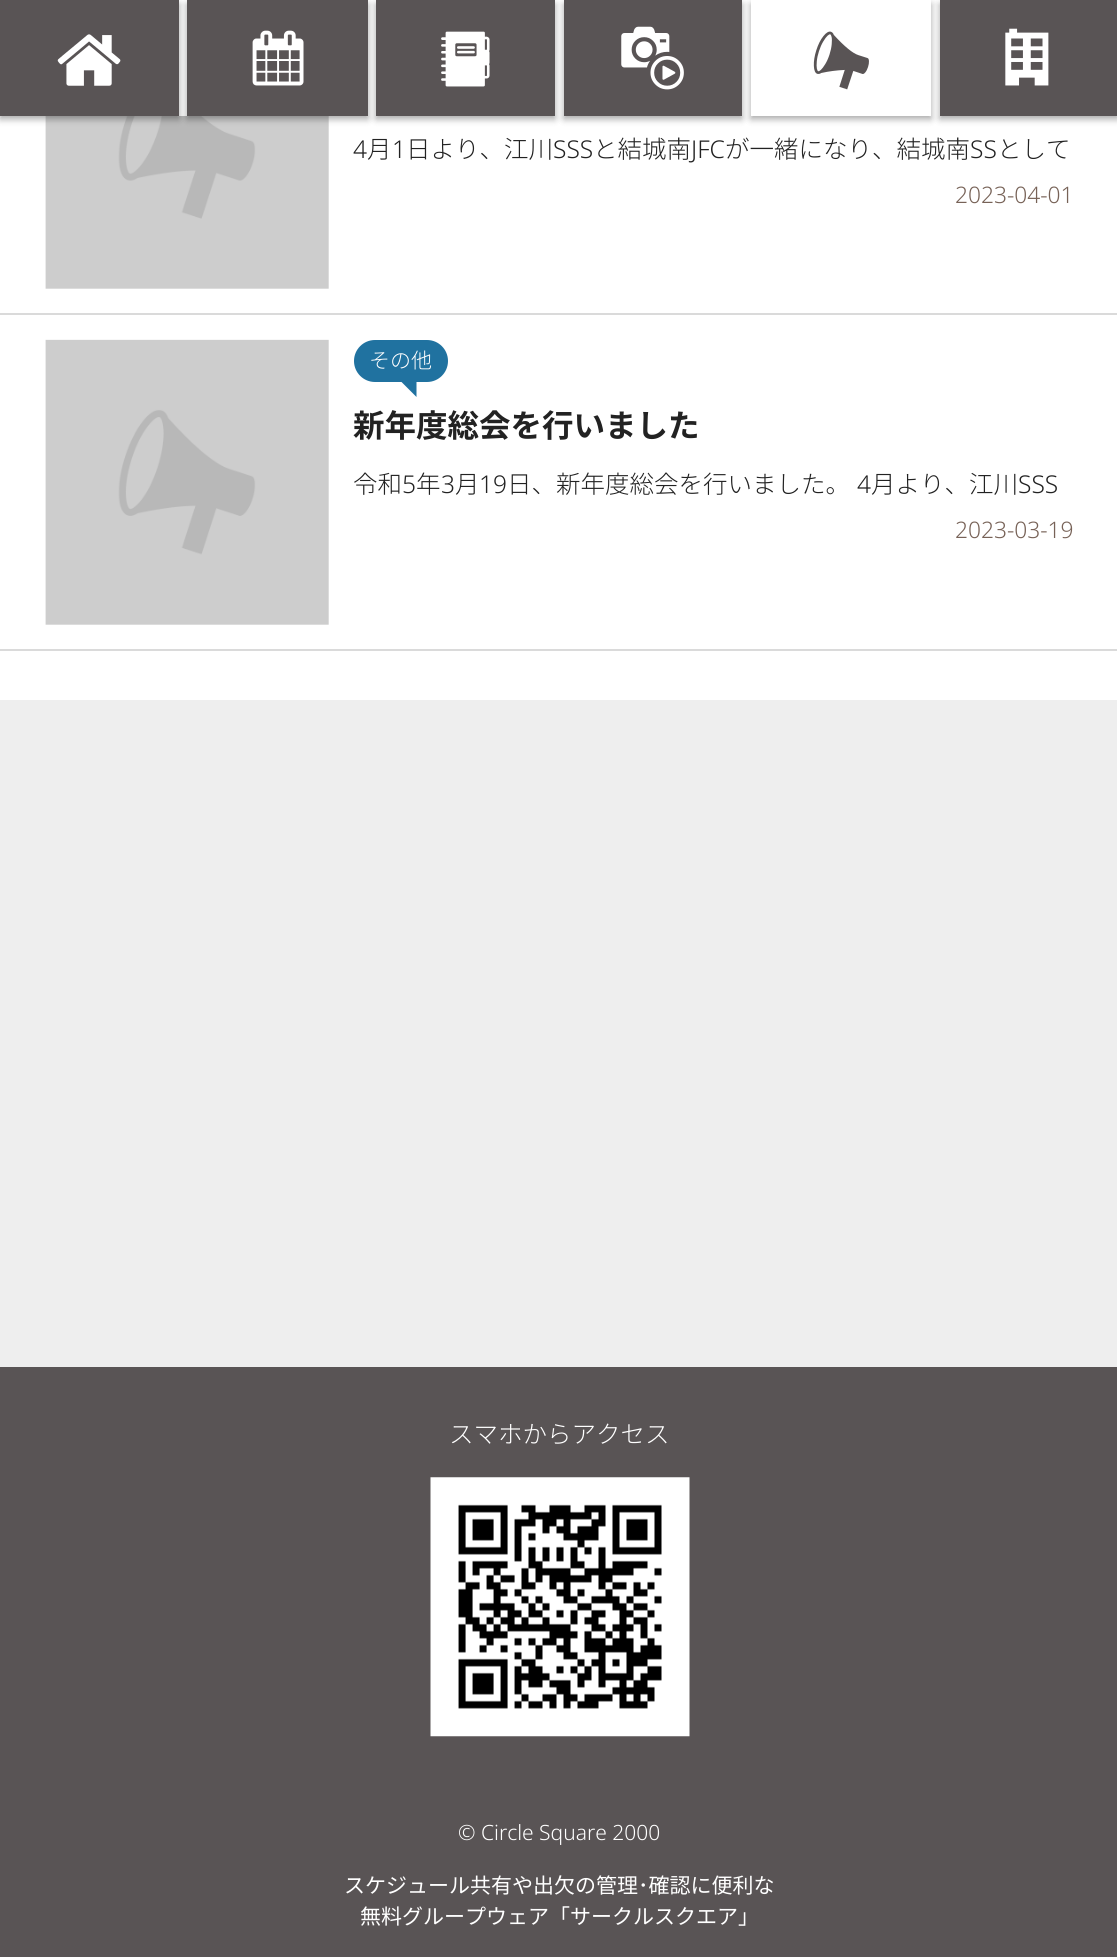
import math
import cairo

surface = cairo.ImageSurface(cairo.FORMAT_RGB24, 1117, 1957)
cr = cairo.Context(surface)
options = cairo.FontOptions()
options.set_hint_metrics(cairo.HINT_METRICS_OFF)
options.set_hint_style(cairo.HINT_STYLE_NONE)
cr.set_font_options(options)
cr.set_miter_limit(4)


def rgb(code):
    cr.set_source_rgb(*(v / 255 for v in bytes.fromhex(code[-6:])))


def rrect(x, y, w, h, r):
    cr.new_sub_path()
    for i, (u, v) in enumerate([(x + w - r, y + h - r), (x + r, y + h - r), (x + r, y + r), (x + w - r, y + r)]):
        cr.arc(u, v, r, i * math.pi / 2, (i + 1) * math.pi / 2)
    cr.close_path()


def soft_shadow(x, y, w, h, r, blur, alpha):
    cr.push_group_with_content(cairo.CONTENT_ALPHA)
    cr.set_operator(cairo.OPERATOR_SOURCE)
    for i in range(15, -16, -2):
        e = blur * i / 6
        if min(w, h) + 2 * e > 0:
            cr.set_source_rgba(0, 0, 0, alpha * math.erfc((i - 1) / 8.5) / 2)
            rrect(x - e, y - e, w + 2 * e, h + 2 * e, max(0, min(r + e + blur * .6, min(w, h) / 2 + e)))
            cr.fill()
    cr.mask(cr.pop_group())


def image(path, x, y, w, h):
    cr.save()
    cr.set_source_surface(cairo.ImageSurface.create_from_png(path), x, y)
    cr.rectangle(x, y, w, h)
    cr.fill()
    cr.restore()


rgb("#eeeeee")
cr.paint()
rgb("#ffffff")
cr.rectangle(179, 0, 761, 116)
cr.fill()
cr.rectangle(0, 116, 1117, 584)
cr.fill()
image("img/7.png", 45, 116, 284, 173)
rgb("#000000")
soft_shadow(0, 4, 179, 115, 0, 3.5, 0.35)
rgb("#595455")
cr.rectangle(0, 0, 179, 116)
cr.fill()
image("img/1.png", 57, 34, 64, 52)
rgb("#000000")
soft_shadow(187, 4, 181, 115, 0, 3.5, 0.35)
rgb("#595455")
cr.rectangle(187, 0, 181, 116)
cr.fill()
image("img/2.png", 252, 30, 52, 56)
rgb("#000000")
soft_shadow(376, 4, 179, 115, 0, 3.5, 0.35)
rgb("#595455")
cr.rectangle(376, 0, 179, 116)
cr.fill()
image("img/3.png", 441, 31, 49, 56)
rgb("#000000")
soft_shadow(564, 4, 178, 115, 0, 3.5, 0.35)
rgb("#595455")
cr.rectangle(564, 0, 178, 116)
cr.fill()
image("img/4.png", 621, 26, 63, 64)
rgb("#000000")
soft_shadow(751, 4, 180, 115, 0, 3.5, 0.35)
rgb("#ffffff")
cr.rectangle(751, 0, 180, 116)
cr.fill()
image("img/5.png", 813, 31, 56, 59)
rgb("#000000")
soft_shadow(940, 4, 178, 115, 0, 3.5, 0.35)
rgb("#595455")
cr.rectangle(940, 0, 177, 116)
cr.fill()
image("img/6.png", 1005, 28, 44, 58)
rgb("#dadada")
cr.rectangle(0, 313, 1117, 2)
cr.fill()
cr.rectangle(0, 649, 1117, 2)
cr.fill()
image("img/8.png", 45, 339, 284, 286)
rgb("#2072a0")
rrect(354, 340, 94, 42, 21)
cr.fill()
cr.new_path()
cr.move_to(401, 381.5)
cr.line_to(416.5, 381.5)
cr.line_to(416.5, 397)
cr.close_path()
cr.fill()
rgb("#595455")
cr.rectangle(0, 1367, 1117, 590)
cr.fill()
image("img/9.png", 430, 1477, 260, 260)
cr.select_font_face("Noto Sans Light")
cr.set_font_size(24.5)
rgb("#222222")
cr.move_to(353, 158)
cr.show_text("4")
cr.select_font_face("Noto Sans CJK JP Light")
cr.move_to(367, 158)
cr.show_text("月")
cr.select_font_face("Noto Sans Light")
cr.move_to(392, 158)
cr.show_text("1")
cr.select_font_face("Noto Sans CJK JP Light")
cr.move_to(406, 158)
cr.show_text("日より、江川")
cr.select_font_face("Noto Sans Light")
cr.move_to(553, 158)
cr.show_text("SSS")
cr.select_font_face("Noto Sans CJK JP Light")
cr.move_to(593, 158)
cr.show_text("と結城南")
cr.select_font_face("Noto Sans Light")
cr.move_to(691, 158)
cr.show_text("JFC")
cr.select_font_face("Noto Sans CJK JP Light")
cr.move_to(725, 158)
cr.show_text("が一緒になり、結城南")
cr.select_font_face("Noto Sans Light")
cr.move_to(970, 158)
cr.show_text("SS")
cr.select_font_face("Noto Sans CJK JP Light")
cr.move_to(997, 158)
cr.show_text("として")
cr.select_font_face("Noto Sans Light")
cr.set_font_size(22.75)
rgb("#776257")
cr.move_to(955, 203)
cr.show_text("2023-04-01")
cr.select_font_face("Noto Sans CJK JP Light")
cr.set_font_size(21)
rgb("#ffffff")
cr.move_to(369, 368)
cr.show_text("その他")
cr.select_font_face("Noto Sans CJK JP", cairo.FONT_SLANT_NORMAL, cairo.FONT_WEIGHT_BOLD)
cr.set_font_size(31.5)
rgb("#222222")
cr.move_to(353, 437)
cr.show_text("新年度総会を行いました")
cr.select_font_face("Noto Sans CJK JP Light")
cr.set_font_size(24.5)
cr.move_to(353, 493)
cr.show_text("令和")
cr.select_font_face("Noto Sans Light")
cr.move_to(402, 493)
cr.show_text("5")
cr.select_font_face("Noto Sans CJK JP Light")
cr.move_to(416, 493)
cr.show_text("年")
cr.select_font_face("Noto Sans Light")
cr.move_to(441, 493)
cr.show_text("3")
cr.select_font_face("Noto Sans CJK JP Light")
cr.move_to(455, 493)
cr.show_text("月")
cr.select_font_face("Noto Sans Light")
cr.move_to(479, 493)
cr.show_text("19")
cr.select_font_face("Noto Sans CJK JP Light")
cr.move_to(507, 493)
cr.show_text("日、新年度総会を行いました。")
cr.select_font_face("Noto Sans Light")
cr.move_to(857, 493)
cr.show_text("4")
cr.select_font_face("Noto Sans CJK JP Light")
cr.move_to(871, 493)
cr.show_text("月より、江川")
cr.select_font_face("Noto Sans Light")
cr.move_to(1018, 493)
cr.show_text("SSS")
cr.set_font_size(22.75)
rgb("#776257")
cr.move_to(955, 538)
cr.show_text("2023-03-19")
cr.select_font_face("Noto Sans CJK JP Light")
cr.set_font_size(24.5)
rgb("#ffffff")
cr.move_to(449, 1443)
cr.show_text("スマホからアクセス")
cr.select_font_face("Noto Sans Light")
cr.set_font_size(21)
cr.move_to(458, 1840)
cr.show_text("© Circle Square 2000")
cr.select_font_face("Noto Sans CJK JP")
cr.move_to(344, 1893)
cr.show_text("スケジュール共有や出欠の管理･確認に便利な")
cr.move_to(360, 1924)
cr.show_text("無料グループウェア「サークルスクエア」")
surface.write_to_png("page.png")
